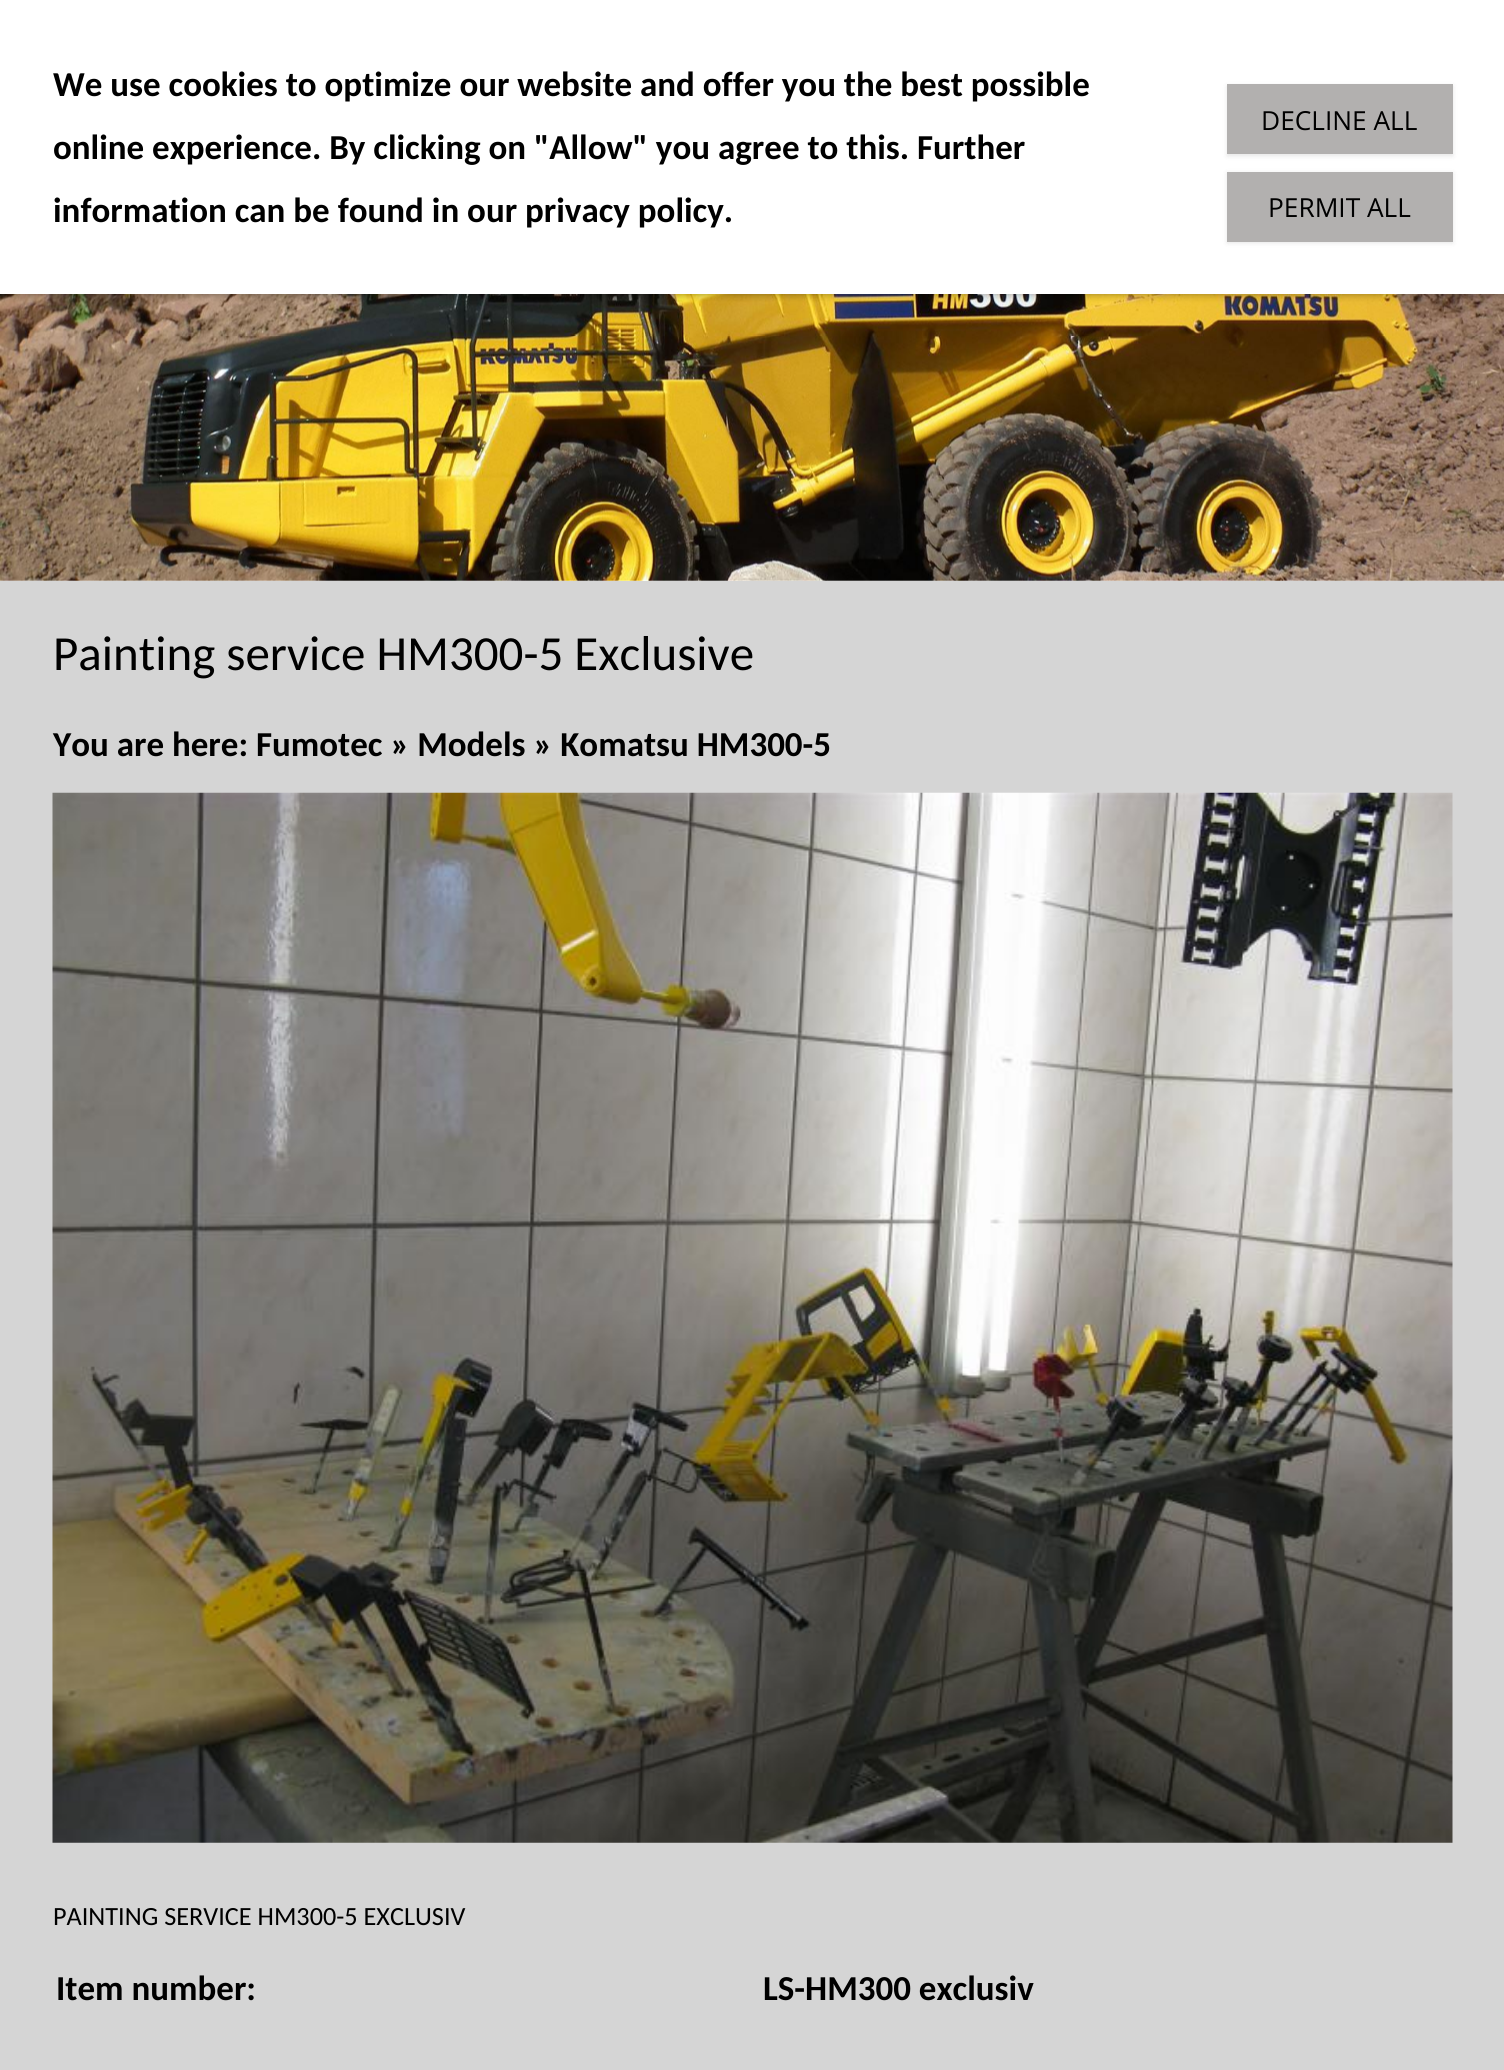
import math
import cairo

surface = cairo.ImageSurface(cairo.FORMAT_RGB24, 1504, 2070)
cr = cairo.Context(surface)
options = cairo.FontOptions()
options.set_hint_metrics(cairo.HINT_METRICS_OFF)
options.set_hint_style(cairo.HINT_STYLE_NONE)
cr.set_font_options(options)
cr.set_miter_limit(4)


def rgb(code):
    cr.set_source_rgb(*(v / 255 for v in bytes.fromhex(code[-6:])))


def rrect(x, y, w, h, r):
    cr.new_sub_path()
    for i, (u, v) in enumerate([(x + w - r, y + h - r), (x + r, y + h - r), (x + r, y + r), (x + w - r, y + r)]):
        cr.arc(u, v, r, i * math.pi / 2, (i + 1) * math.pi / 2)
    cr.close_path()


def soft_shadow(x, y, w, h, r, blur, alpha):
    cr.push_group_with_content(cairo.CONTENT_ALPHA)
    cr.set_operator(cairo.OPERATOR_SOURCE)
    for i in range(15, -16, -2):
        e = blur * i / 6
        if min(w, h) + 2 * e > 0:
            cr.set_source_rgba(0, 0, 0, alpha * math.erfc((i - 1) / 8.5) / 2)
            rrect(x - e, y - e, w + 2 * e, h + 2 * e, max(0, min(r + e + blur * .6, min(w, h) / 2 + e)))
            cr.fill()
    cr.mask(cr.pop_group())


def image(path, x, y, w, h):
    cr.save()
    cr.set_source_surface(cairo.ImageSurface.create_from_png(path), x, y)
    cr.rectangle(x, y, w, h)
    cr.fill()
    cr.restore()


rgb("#ffffff")
cr.paint()
image("img/1.png", 0, 294, 1504, 287)
rgb("#000000")
soft_shadow(0, 0, 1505, 294, 0, 4.5, 0.4)
rgb("#ffffff")
cr.rectangle(0, 0, 1504, 294)
cr.fill()
rgb("#000000")
soft_shadow(1227, 86, 226, 70, 0, 2.5, 0.1)
rgb("#b2b0af")
cr.rectangle(1227, 84, 226, 70)
cr.fill()
rgb("#000000")
soft_shadow(1227, 173, 226, 70, 0, 2.5, 0.1)
rgb("#b2b0af")
cr.rectangle(1227, 172, 226, 70)
cr.fill()
rgb("#d5d5d5")
cr.rectangle(0, 581, 1504, 1489)
cr.fill()
image("img/2.png", 52, 792, 1401, 1051)
cr.select_font_face("Carlito", cairo.FONT_SLANT_NORMAL, cairo.FONT_WEIGHT_BOLD)
cr.set_font_size(35)
rgb("#000000")
for x, y, s in [
    (53, 96, "We use cookies to optimize our website and offer you the best possible"),
    (53, 159, "online experience. By clicking on \"Allow\" you agree to this. Further"),
    (53, 222, "information can be found in our privacy policy."),
]:
    cr.move_to(x, y)
    cr.show_text(s)
cr.select_font_face("Open Sans")
cr.set_font_size(26.25)
cr.move_to(1261, 130)
cr.show_text("DECLINE ALL")
cr.move_to(1268, 217)
cr.show_text("PERMIT ALL")
cr.select_font_face("Carlito")
cr.set_font_size(49)
cr.move_to(53, 670)
cr.show_text("Painting service HM300-5 Exclusive")
cr.select_font_face("Carlito", cairo.FONT_SLANT_NORMAL, cairo.FONT_WEIGHT_BOLD)
cr.set_font_size(35)
cr.move_to(53, 756)
cr.show_text("You are here: Fumotec » Models » Komatsu HM300-5")
cr.select_font_face("Carlito")
cr.set_font_size(26.25)
cr.move_to(53, 1925)
cr.show_text("PAINTING SERVICE HM300-5 EXCLUSIV")
cr.select_font_face("Carlito", cairo.FONT_SLANT_NORMAL, cairo.FONT_WEIGHT_BOLD)
cr.set_font_size(35)
cr.move_to(56, 2000)
cr.show_text("Item number:")
cr.move_to(763, 2000)
cr.show_text("LS-HM300 exclusiv")
surface.write_to_png("page.png")
